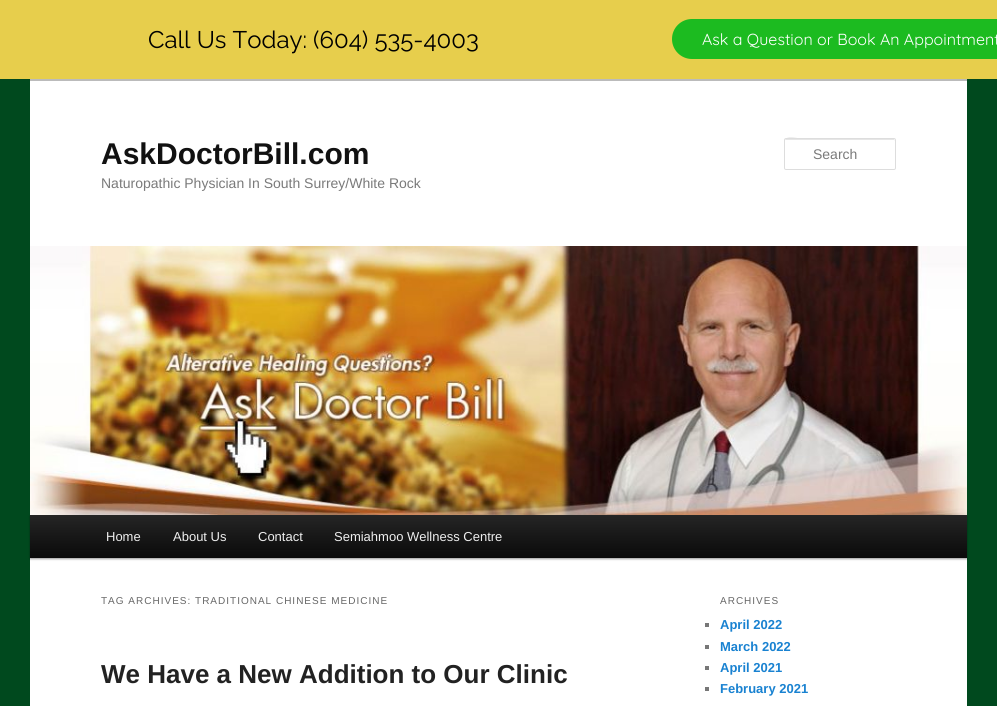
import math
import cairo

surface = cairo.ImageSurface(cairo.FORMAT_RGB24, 997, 706)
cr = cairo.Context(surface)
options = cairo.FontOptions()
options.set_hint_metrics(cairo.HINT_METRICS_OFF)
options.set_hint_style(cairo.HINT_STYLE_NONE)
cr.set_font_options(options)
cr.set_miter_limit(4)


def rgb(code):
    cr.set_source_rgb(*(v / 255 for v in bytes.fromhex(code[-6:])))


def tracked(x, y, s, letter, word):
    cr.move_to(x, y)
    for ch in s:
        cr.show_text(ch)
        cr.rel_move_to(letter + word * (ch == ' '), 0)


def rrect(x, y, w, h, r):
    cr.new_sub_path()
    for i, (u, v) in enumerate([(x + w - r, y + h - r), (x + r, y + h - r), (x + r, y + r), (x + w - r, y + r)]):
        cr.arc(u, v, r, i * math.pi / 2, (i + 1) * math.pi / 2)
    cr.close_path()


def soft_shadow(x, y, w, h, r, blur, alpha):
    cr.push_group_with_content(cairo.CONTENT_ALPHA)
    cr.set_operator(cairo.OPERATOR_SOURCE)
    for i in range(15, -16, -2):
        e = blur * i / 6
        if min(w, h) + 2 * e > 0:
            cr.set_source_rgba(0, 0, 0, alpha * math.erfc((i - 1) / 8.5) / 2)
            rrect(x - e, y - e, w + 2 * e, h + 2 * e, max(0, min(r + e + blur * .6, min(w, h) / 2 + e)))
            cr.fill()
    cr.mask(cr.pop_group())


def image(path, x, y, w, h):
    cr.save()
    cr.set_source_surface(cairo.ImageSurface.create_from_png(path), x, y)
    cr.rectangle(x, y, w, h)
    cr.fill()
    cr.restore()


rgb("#00491e")
cr.paint()
rgb("#e7ce4c")
cr.rectangle(0, 0, 997, 79)
cr.fill()
rgb("#1cbb20")
rrect(672, 19, 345, 40, 20)
cr.fill()
rgb("#ffffff")
cr.rectangle(30, 81, 937, 625)
cr.fill()
rgb("#bbbbbb")
cr.rectangle(30, 79, 937, 2)
cr.fill()
rgb("#e6e6e6")
cr.new_path()
cr.move_to(786, 140)
cr.line_to(895, 140)
cr.line_to(895, 141)
cr.line_to(894, 139)
cr.line_to(804, 139)
cr.curve_to(800, 139, 785, 134, 785, 141)
cr.curve_to(785, 140, 785, 140, 786, 140)
cr.close_path()
cr.fill()
rrect(784.5, 138.5, 111, 31, 1.5)
rgb("#dddddd")
cr.set_line_width(1)
cr.stroke()
rgb("#000000")
soft_shadow(30, 516, 937, 43, 0, 1, 0.4)
image("img/1.png", 30, 246, 937, 269)
gradient = cairo.LinearGradient(499, 515, 499, 558)
gradient.add_color_stop_rgba(0, 0.145, 0.145, 0.145, 1)
gradient.add_color_stop_rgba(1, 0.039, 0.039, 0.039, 1)
cr.set_source(gradient)
cr.rectangle(30, 515, 937, 43)
cr.fill()
for x, y, w, h, color in [
    (705, 623, 4, 4, "#777777"),
    (705, 645, 4, 4, "#777777"),
    (705, 666, 4, 4, "#777777"),
    (705, 687, 4, 4, "#777777"),
]:
    rgb(color)
    cr.rectangle(x, y, w, h)
    cr.fill()
cr.select_font_face("Raleway")
cr.set_font_size(24)
rgb("#000000")
cr.move_to(148, 48)
cr.show_text("Call Us Today: (604) 535-4003")
cr.select_font_face("Quicksand")
cr.set_font_size(16)
rgb("#ffffff")
cr.move_to(702, 45)
cr.show_text("Ask a Question or Book An Appointment")
cr.select_font_face("Liberation Sans", cairo.FONT_SLANT_NORMAL, cairo.FONT_WEIGHT_BOLD)
cr.set_font_size(30)
rgb("#111111")
cr.move_to(101, 164)
cr.show_text("AskDoctorBill.com")
cr.select_font_face("Liberation Sans")
cr.set_font_size(14)
rgb("#7a7a7a")
cr.move_to(101, 188)
cr.show_text("Naturopathic Physician In South Surrey/White Rock")
cr.move_to(813, 159)
cr.show_text("Search")
cr.set_font_size(13)
rgb("#eeeeee")
for x, y, s in [
    (106, 541, "Home"),
    (173, 541, "About Us"),
    (258, 541, "Contact"),
    (334, 541, "Semiahmoo Wellness Centre"),
]:
    cr.move_to(x, y)
    cr.show_text(s)
cr.set_font_size(10)
rgb("#666666")
tracked(101, 604, "TAG ARCHIVES: TRADITIONAL CHINESE MEDICINE", 1, 0)
cr.select_font_face("Liberation Sans", cairo.FONT_SLANT_NORMAL, cairo.FONT_WEIGHT_BOLD)
cr.set_font_size(26)
rgb("#222222")
cr.move_to(101, 683)
cr.show_text("We Have a New Addition to Our Clinic")
cr.select_font_face("Liberation Sans")
cr.set_font_size(10)
rgb("#666666")
tracked(720, 604, "ARCHIVES", 1, 0)
cr.select_font_face("Liberation Sans", cairo.FONT_SLANT_NORMAL, cairo.FONT_WEIGHT_BOLD)
cr.set_font_size(13)
rgb("#1982d1")
for x, y, s in [
    (720, 629, "April 2022"),
    (720, 651, "March 2022"),
    (720, 672, "April 2021"),
    (720, 693, "February 2021"),
]:
    cr.move_to(x, y)
    cr.show_text(s)
surface.write_to_png("page.png")
